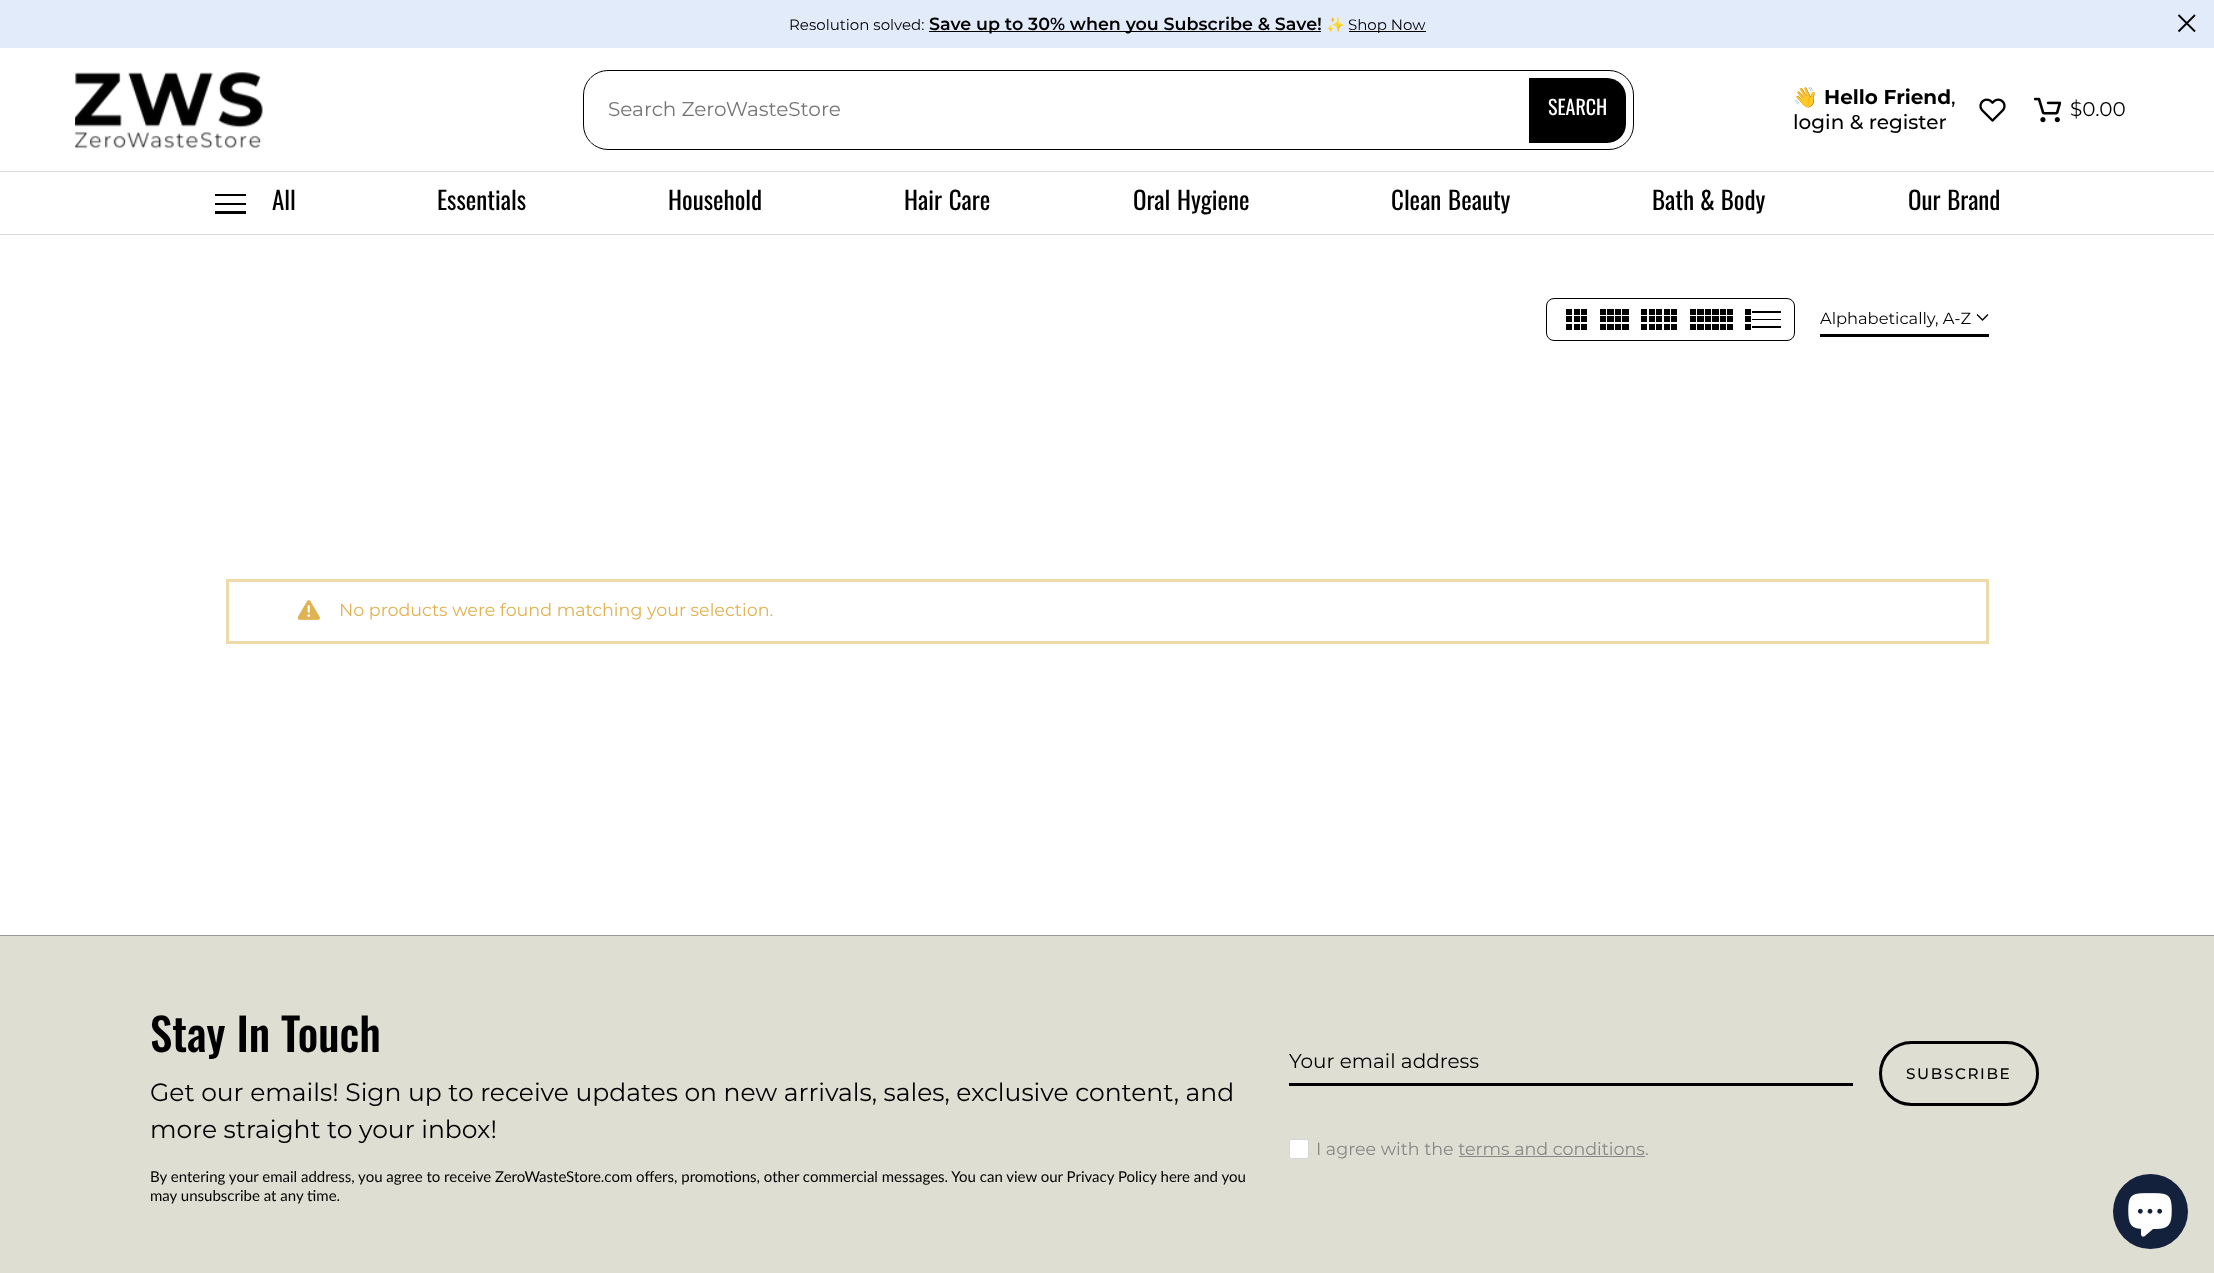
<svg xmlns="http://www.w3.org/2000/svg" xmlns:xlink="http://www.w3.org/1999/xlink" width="2214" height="1273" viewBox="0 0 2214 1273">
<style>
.cls-1{font:15px Montserrat;fill:#000000}
.cls-2{font:600 17.5px Montserrat;fill:#000000}
.cls-3{font:15px Noto Color Emoji;fill:#000000}
.cls-4{font:20px Montserrat;fill:#757575}
.cls-5{font:20px Oswald;fill:#ffffff}
.cls-6{font:bold 20px Noto Color Emoji;fill:#000000}
.cls-7{font:bold 20px Montserrat;fill:#000000}
.cls-8{font:500 20px Montserrat;fill:#000000}
.cls-9{font:20px Montserrat;fill:#000000}
.cls-10{font:25px Oswald;fill:#000000}
.cls-11{font:16.25px Montserrat;fill:#000000}
.cls-12{font:17.5px Montserrat;fill:#e0b252}
.cls-13{font:500 45px Oswald;fill:#000000}
.cls-14{font:25px Montserrat;fill:#000000}
.cls-15{font:15px Lato;fill:#000000}
.cls-16{font:500 15.25px Montserrat;letter-spacing:1.6px;fill:#000000}
.cls-17{font:17.5px Montserrat;fill:#878787}
</style>
<defs>
<clipPath id="clip1"><rect x="584" y="71" width="1049" height="78" rx="24"/></clipPath>
</defs>
<rect width="100%" height="100%" fill="#ffffff"/>
<rect fill="#e2ebfa" x="0" y="0" width="2214" height="48"/>
<rect fill="#000000" x="929" y="31" width="392" height="1"/>
<rect fill="#000000" x="1349" y="31" width="77" height="1"/>
<path fill="none" stroke="#000000" stroke-width="1.8" d="M2195 15L2178.5 31.5M2195 31.5L2178.5 15"/>
<image xlink:href="image0.png" x="75" y="72" width="188" height="77"/>
<rect fill="none" stroke="#000000" x="583.5" y="70.5" width="1050" height="79" rx="24.5"/>
<g clip-path="url(#clip1)">
<rect fill="#ffffff" x="590" y="78" width="939" height="65"/>
</g>
<path fill="#000000" d="M1529 78H1607C1617.5 78 1626 86.5 1626 97V124C1626 134.5 1617.5 143 1607 143H1529Z"/>
<image xlink:href="image1.png" x="1979" y="98" width="27" height="24"/>
<image xlink:href="image2.png" x="2034" y="97" width="27" height="26"/>
<rect fill="#d9d9d9" x="0" y="171" width="2214" height="1"/>
<rect fill="#000000" x="215" y="194" width="31" height="2"/>
<rect fill="#000000" x="215" y="203" width="31" height="2"/>
<rect fill="#000000" x="215" y="211" width="31" height="3"/>
<rect fill="#d9d9d9" x="0" y="234" width="2214" height="1"/>
<rect fill="none" stroke="#000000" x="1546.5" y="298.5" width="248" height="42" rx="7.5"/>
<image xlink:href="image3.png" x="1566" y="309" width="21" height="21"/>
<image xlink:href="image4.png" x="1600" y="309" width="29" height="21"/>
<image xlink:href="image5.png" x="1641" y="309" width="36" height="21"/>
<image xlink:href="image6.png" x="1690" y="309" width="43" height="21"/>
<rect fill="#000000" x="1745" y="309" width="6" height="6"/>
<rect fill="#000000" x="1745" y="316" width="6" height="6"/>
<rect fill="#000000" x="1745" y="324" width="6" height="6"/>
<rect fill="#000000" x="1752" y="311" width="29" height="2"/>
<rect fill="#000000" x="1752" y="319" width="29" height="1"/>
<rect fill="#000000" x="1752" y="326" width="29" height="2"/>
<rect fill="#000000" x="1820" y="334" width="169" height="3"/>
<path fill="none" stroke="#000000" stroke-width="1.3" stroke-linecap="square" d="M1987.5 315L1982.5 320L1977.5 315"/>
<rect fill="none" stroke="#f0d9a9" stroke-width="3" x="227.5" y="580.5" width="1760" height="62"/>
<image xlink:href="image7.png" x="298" y="600" width="22" height="20"/>
<rect fill="#deded2" x="0" y="936" width="2214" height="337"/>
<rect fill="#969696" x="0" y="935" width="2214" height="1"/>
<rect fill="#000000" x="1289" y="1083" width="564" height="3"/>
<rect fill="none" stroke="#000000" stroke-width="3" x="1880.5" y="1042.5" width="157" height="62" rx="31"/>
<rect fill="#ffffff" stroke="#d4d6d8" x="1289.5" y="1139.5" width="19" height="19" rx="2"/>
<rect fill="#878787" x="1459" y="1156" width="186" height="1"/>
<circle fill="#14213d" cx="2150.5" cy="1211.5" r="37.5"/>
<image xlink:href="image8.png" x="2128" y="1193" width="44" height="44"/>
<text class="cls-1" x="789" y="30">Resolution solved:</text>
<text class="cls-2" x="929" y="30">Save up to 30% when you Subscribe &amp; Save!</text>
<text class="cls-3" x="1326" y="30">✨</text>
<text class="cls-1" x="1348" y="30">Shop Now</text>
<text class="cls-4" x="608" y="116">Search ZeroWasteStore</text>
<text class="cls-5" x="1548" y="115">SEARCH</text>
<text class="cls-6" x="1793" y="104">👋</text>
<text class="cls-7" x="1824" y="104">Hello Friend</text>
<text class="cls-8" x="1951" y="104">,</text>
<text class="cls-8" x="1793" y="129">login &amp; register</text>
<text class="cls-9" x="2070" y="116">$0.00</text>
<text class="cls-10" x="272" y="210">All</text>
<text class="cls-10" x="437" y="210">Essentials</text>
<text class="cls-10" x="668" y="210">Household</text>
<text class="cls-10" x="904" y="210" word-spacing="1">Hair Care</text>
<text class="cls-10" x="1133" y="210" word-spacing="1">Oral Hygiene</text>
<text class="cls-10" x="1391" y="210" word-spacing="1">Clean Beauty</text>
<text class="cls-10" x="1652" y="210">Bath &amp; Body</text>
<text class="cls-10" x="1908" y="210" word-spacing="1">Our Brand</text>
<text class="cls-11" x="1820" y="324">Alphabetically, A-Z</text>
<text class="cls-12" x="339" y="616">No products were found matching your selection.</text>
<text class="cls-13" x="150" y="1052">Stay In Touch</text>
<text class="cls-14"><tspan x="150" y="1101">Get our emails! Sign up to receive updates on new arrivals, sales, exclusive content, and</tspan><tspan x="150" y="1138">more straight to your inbox!</tspan></text>
<text class="cls-15"><tspan x="150" y="1182">By entering your email address, you agree to receive ZeroWasteStore.com offers, promotions, other commercial messages. You can view our Privacy Policy here and you</tspan><tspan x="150" y="1201">may unsubscribe at any time.</tspan></text>
<text class="cls-9" x="1289" y="1068">Your email address</text>
<text class="cls-16" x="1906" y="1079">SUBSCRIBE</text>
<text class="cls-17" x="1316" y="1155">I agree with the terms and conditions</text>
<text class="cls-17" x="1645" y="1155">.</text>
</svg>
